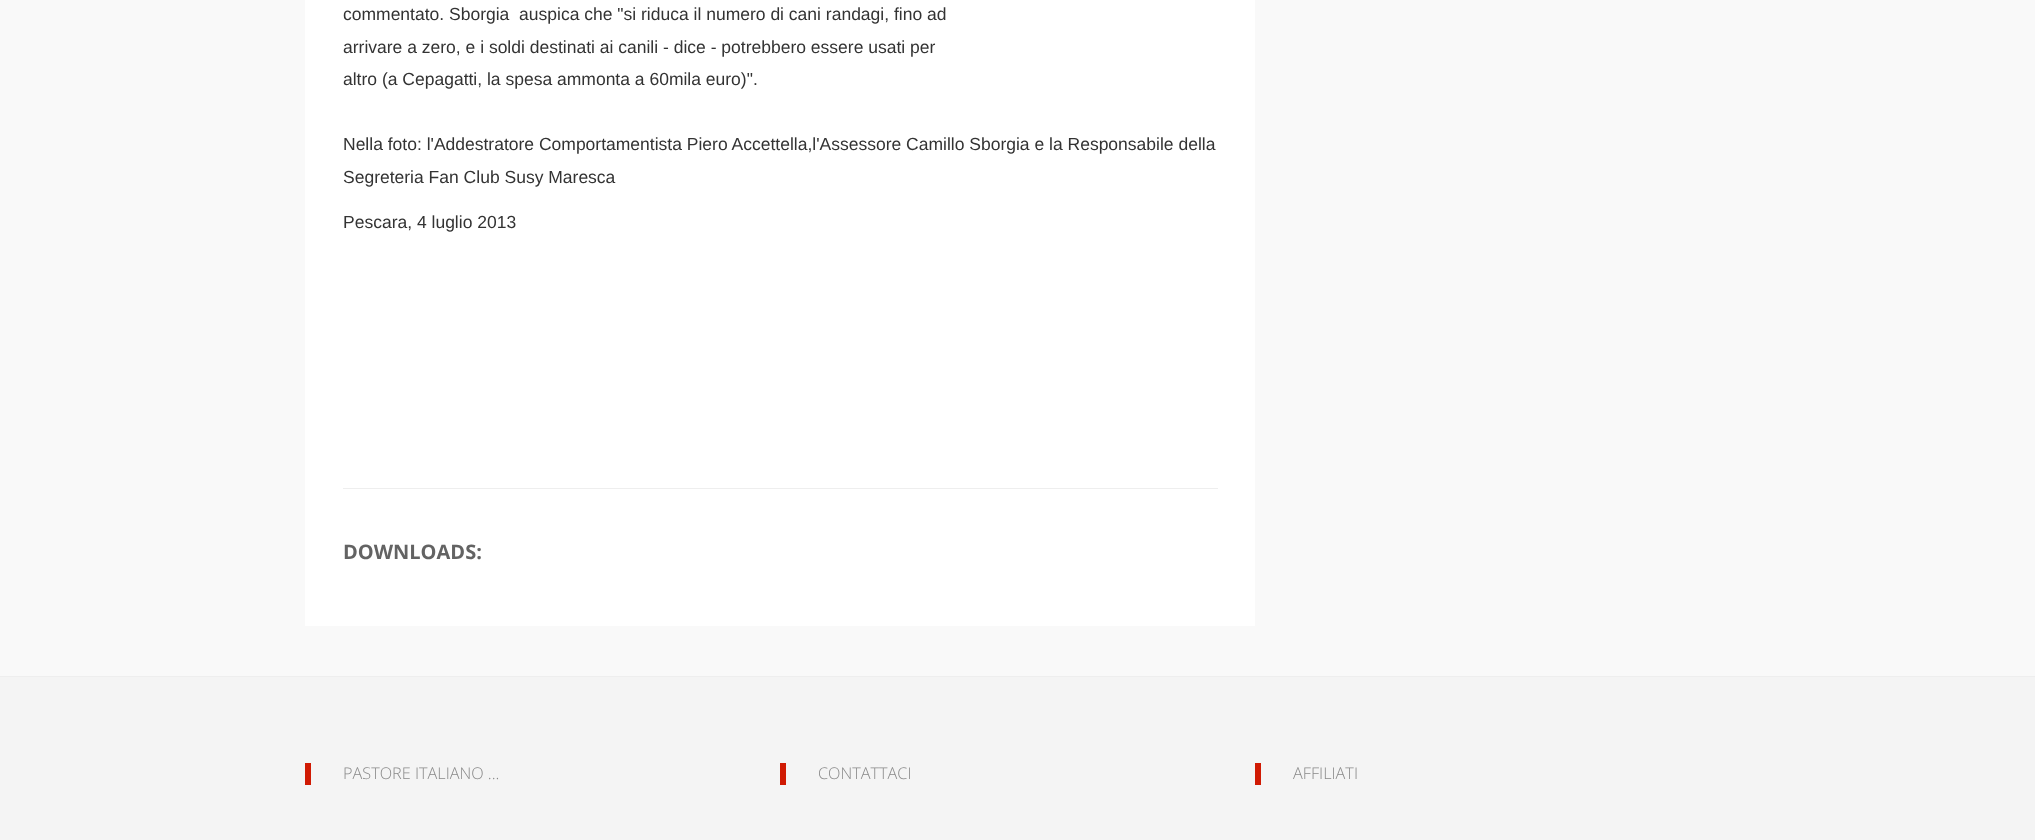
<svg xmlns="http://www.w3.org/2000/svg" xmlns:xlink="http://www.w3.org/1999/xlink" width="2035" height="840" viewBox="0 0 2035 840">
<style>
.cls-1{font:17.5px Liberation Sans;fill:#333333}
.cls-2{font:bold 20px Open Sans;fill:#636363}
.cls-3{font:300 16.25px Open Sans;fill:#898989}
</style>
<rect width="100%" height="100%" fill="#f9f9f9"/>
<rect fill="#ffffff" x="305" y="0" width="950" height="626"/>
<rect fill="#eeeeee" x="343" y="488" width="875" height="1"/>
<rect fill="#f4f4f4" x="0" y="677" width="2035" height="163"/>
<rect fill="#eeeeee" x="0" y="676" width="2035" height="1"/>
<rect fill="#d01a03" x="305" y="763" width="6" height="22"/>
<rect fill="#d01a03" x="780" y="763" width="6" height="22"/>
<rect fill="#d01a03" x="1255" y="763" width="6" height="22"/>
<text class="cls-1" xml:space="preserve"><tspan x="343" y="20">commentato. Sborgia  auspica che "si riduca il numero di cani randagi, fino ad</tspan><tspan x="343" y="53">arrivare a zero, e i soldi destinati ai canili - dice - potrebbero essere usati per</tspan><tspan x="343" y="85">altro (a Cepagatti, la spesa ammonta a 60mila euro)".</tspan></text>
<text class="cls-1"><tspan x="343" y="150">Nella foto: l'Addestratore Comportamentista Piero Accettella,l'Assessore Camillo Sborgia e la Responsabile della</tspan><tspan x="343" y="183">Segreteria Fan Club Susy Maresca</tspan></text>
<text class="cls-1" x="343" y="228">Pescara, 4 luglio 2013</text>
<text class="cls-2" x="343" y="559">DOWNLOADS:</text>
<text class="cls-3" x="343" y="779">PASTORE ITALIANO ...</text>
<text class="cls-3" x="818" y="779">CONTATTACI</text>
<text class="cls-3" x="1293" y="779">AFFILIATI</text>
</svg>
